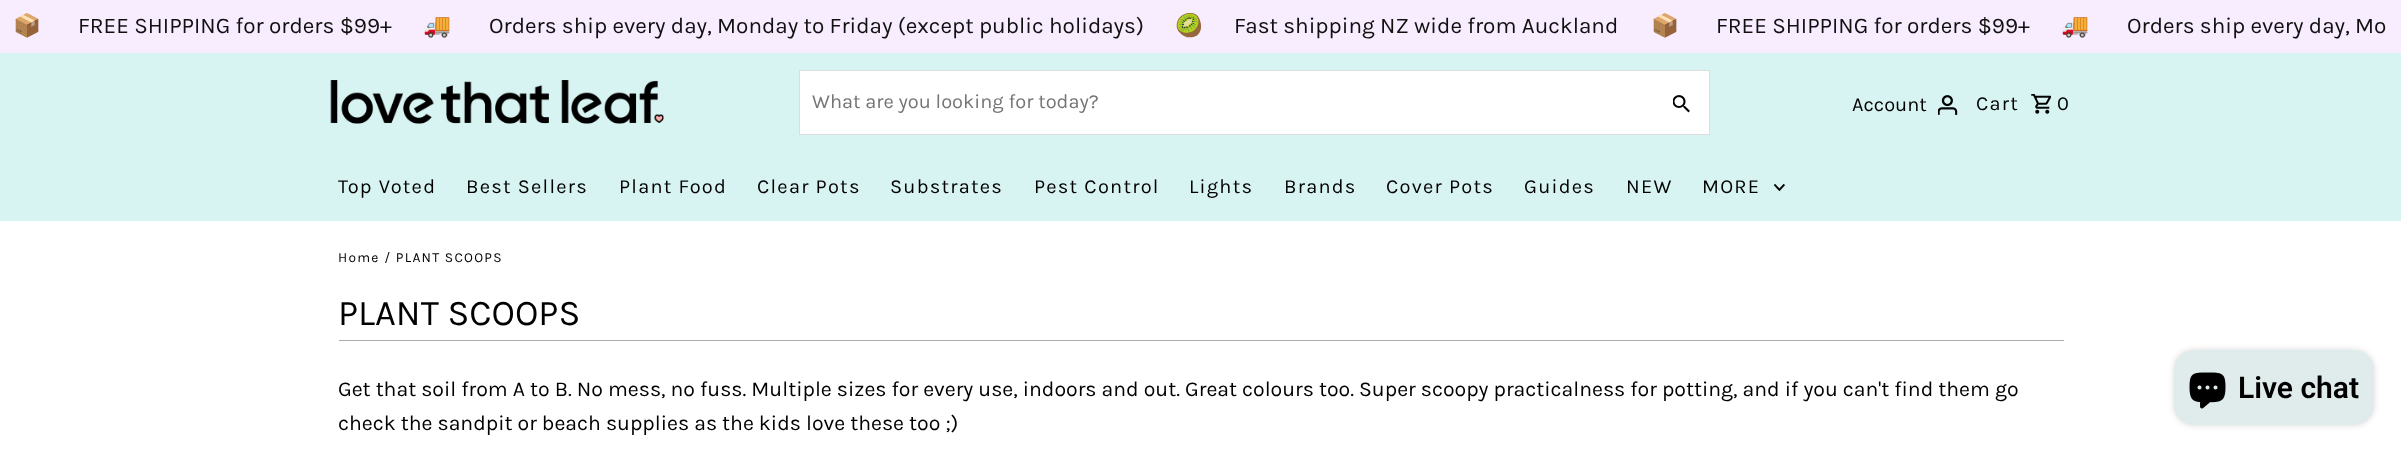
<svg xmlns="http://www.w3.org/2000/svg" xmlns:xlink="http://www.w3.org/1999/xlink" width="2401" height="451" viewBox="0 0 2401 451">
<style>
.cls-1{font:22.5px Noto Color Emoji;fill:#101010}
.cls-2{font:22.5px Karla;fill:#101010}
.cls-3{font:20px Karla;fill:#757575}
.cls-4{font:20px Karla;fill:#000000}
.cls-5{font:20px Karla;letter-spacing:1.25px;fill:#000000}
.cls-6{font:13.75px Karla;letter-spacing:1.25px;fill:#000000}
.cls-7{font:36.25px Karla;fill:#000000}
.cls-8{font:21.25px Karla;fill:#000000}
.cls-9{font:600 30px Roboto;fill:#000000}
</style>
<defs>
<clipPath id="clip1"><rect x="13" y="13" width="2376" height="27"/></clipPath>
</defs>
<rect width="100%" height="100%" fill="#ffffff"/>
<rect fill="#f8edff" x="0" y="0" width="2401" height="53"/>
<rect fill="#d8f4f2" x="0" y="53" width="2401" height="168"/>
<image xlink:href="image0.png" x="330" y="80" width="334" height="44"/>
<rect fill="none" stroke="#dddddd" x="799.5" y="70.5" width="910" height="64"/>
<rect fill="#ffffff" x="800" y="71" width="909" height="63"/>
<image xlink:href="image1.png" x="1673" y="95" width="17" height="18"/>
<image xlink:href="image2.png" x="1938" y="95" width="20" height="20"/>
<image xlink:href="image3.png" x="2031" y="94" width="20" height="20"/>
<image xlink:href="image4.png" x="1774" y="184" width="11" height="7"/>
<rect fill="#acacac" x="339" y="340" width="1725" height="1"/>
<rect fill="#000000" fill-opacity="0.15" filter="blur(3px)" x="2174" y="350" width="200" height="75" rx="20"/>
<rect fill="#e0eceb" x="2174" y="350" width="200" height="75" rx="20"/>
<image xlink:href="image5.png" x="2189" y="372" width="37" height="37"/>
<g clip-path="url(#clip1)">
<text class="cls-1" x="13" y="33">📦</text>
</g>
<text class="cls-2" x="78" y="33">FREE SHIPPING for orders $99+</text>
<g clip-path="url(#clip1)">
<text class="cls-1" x="423" y="33">🚚</text>
</g>
<text class="cls-2" x="489" y="33">Orders ship every day, Monday to Friday (except public holidays)</text>
<g clip-path="url(#clip1)">
<text class="cls-1" x="1175" y="33">🥝</text>
</g>
<text class="cls-2" x="1234" y="33">Fast shipping NZ wide from Auckland</text>
<g clip-path="url(#clip1)">
<text class="cls-1" x="1651" y="33">📦</text>
</g>
<text class="cls-2" x="1716" y="33">FREE SHIPPING for orders $99+</text>
<g clip-path="url(#clip1)">
<text class="cls-1" x="2061" y="33">🚚</text>
</g>
<text class="cls-2" x="2127" y="33">Orders ship every day, Mo</text>
<text class="cls-3" x="812" y="108">What are you looking for today?</text>
<text class="cls-4" x="1852" y="111">Account</text>
<text class="cls-5" x="1976" y="110">Cart</text>
<text class="cls-5" x="2057" y="110">0</text>
<text class="cls-5" x="338" y="193">Top Voted</text>
<text class="cls-5" x="466" y="193">Best Sellers</text>
<text class="cls-5" x="619" y="193">Plant Food</text>
<text class="cls-5" x="757" y="193">Clear Pots</text>
<text class="cls-5" x="890" y="193">Substrates</text>
<text class="cls-5" x="1034" y="193">Pest Control</text>
<text class="cls-5" x="1189" y="193">Lights</text>
<text class="cls-5" x="1284" y="193">Brands</text>
<text class="cls-5" x="1386" y="193">Cover Pots</text>
<text class="cls-5" x="1524" y="193">Guides</text>
<text class="cls-5" x="1626" y="193">NEW</text>
<text class="cls-5" x="1702" y="193">MORE</text>
<text class="cls-6" x="338" y="262">Home / PLANT SCOOPS</text>
<text class="cls-7" x="338" y="325">PLANT SCOOPS</text>
<text class="cls-8"><tspan x="338" y="396">Get that soil from A to B. No mess, no fuss. Multiple sizes for every use, indoors and out. Great colours too. Super scoopy practicalness for potting, and if you can't find them go</tspan><tspan x="338" y="430">check the sandpit or beach supplies as the kids love these too ;)</tspan></text>
<text class="cls-9" x="2238" y="398">Live chat</text>
</svg>
